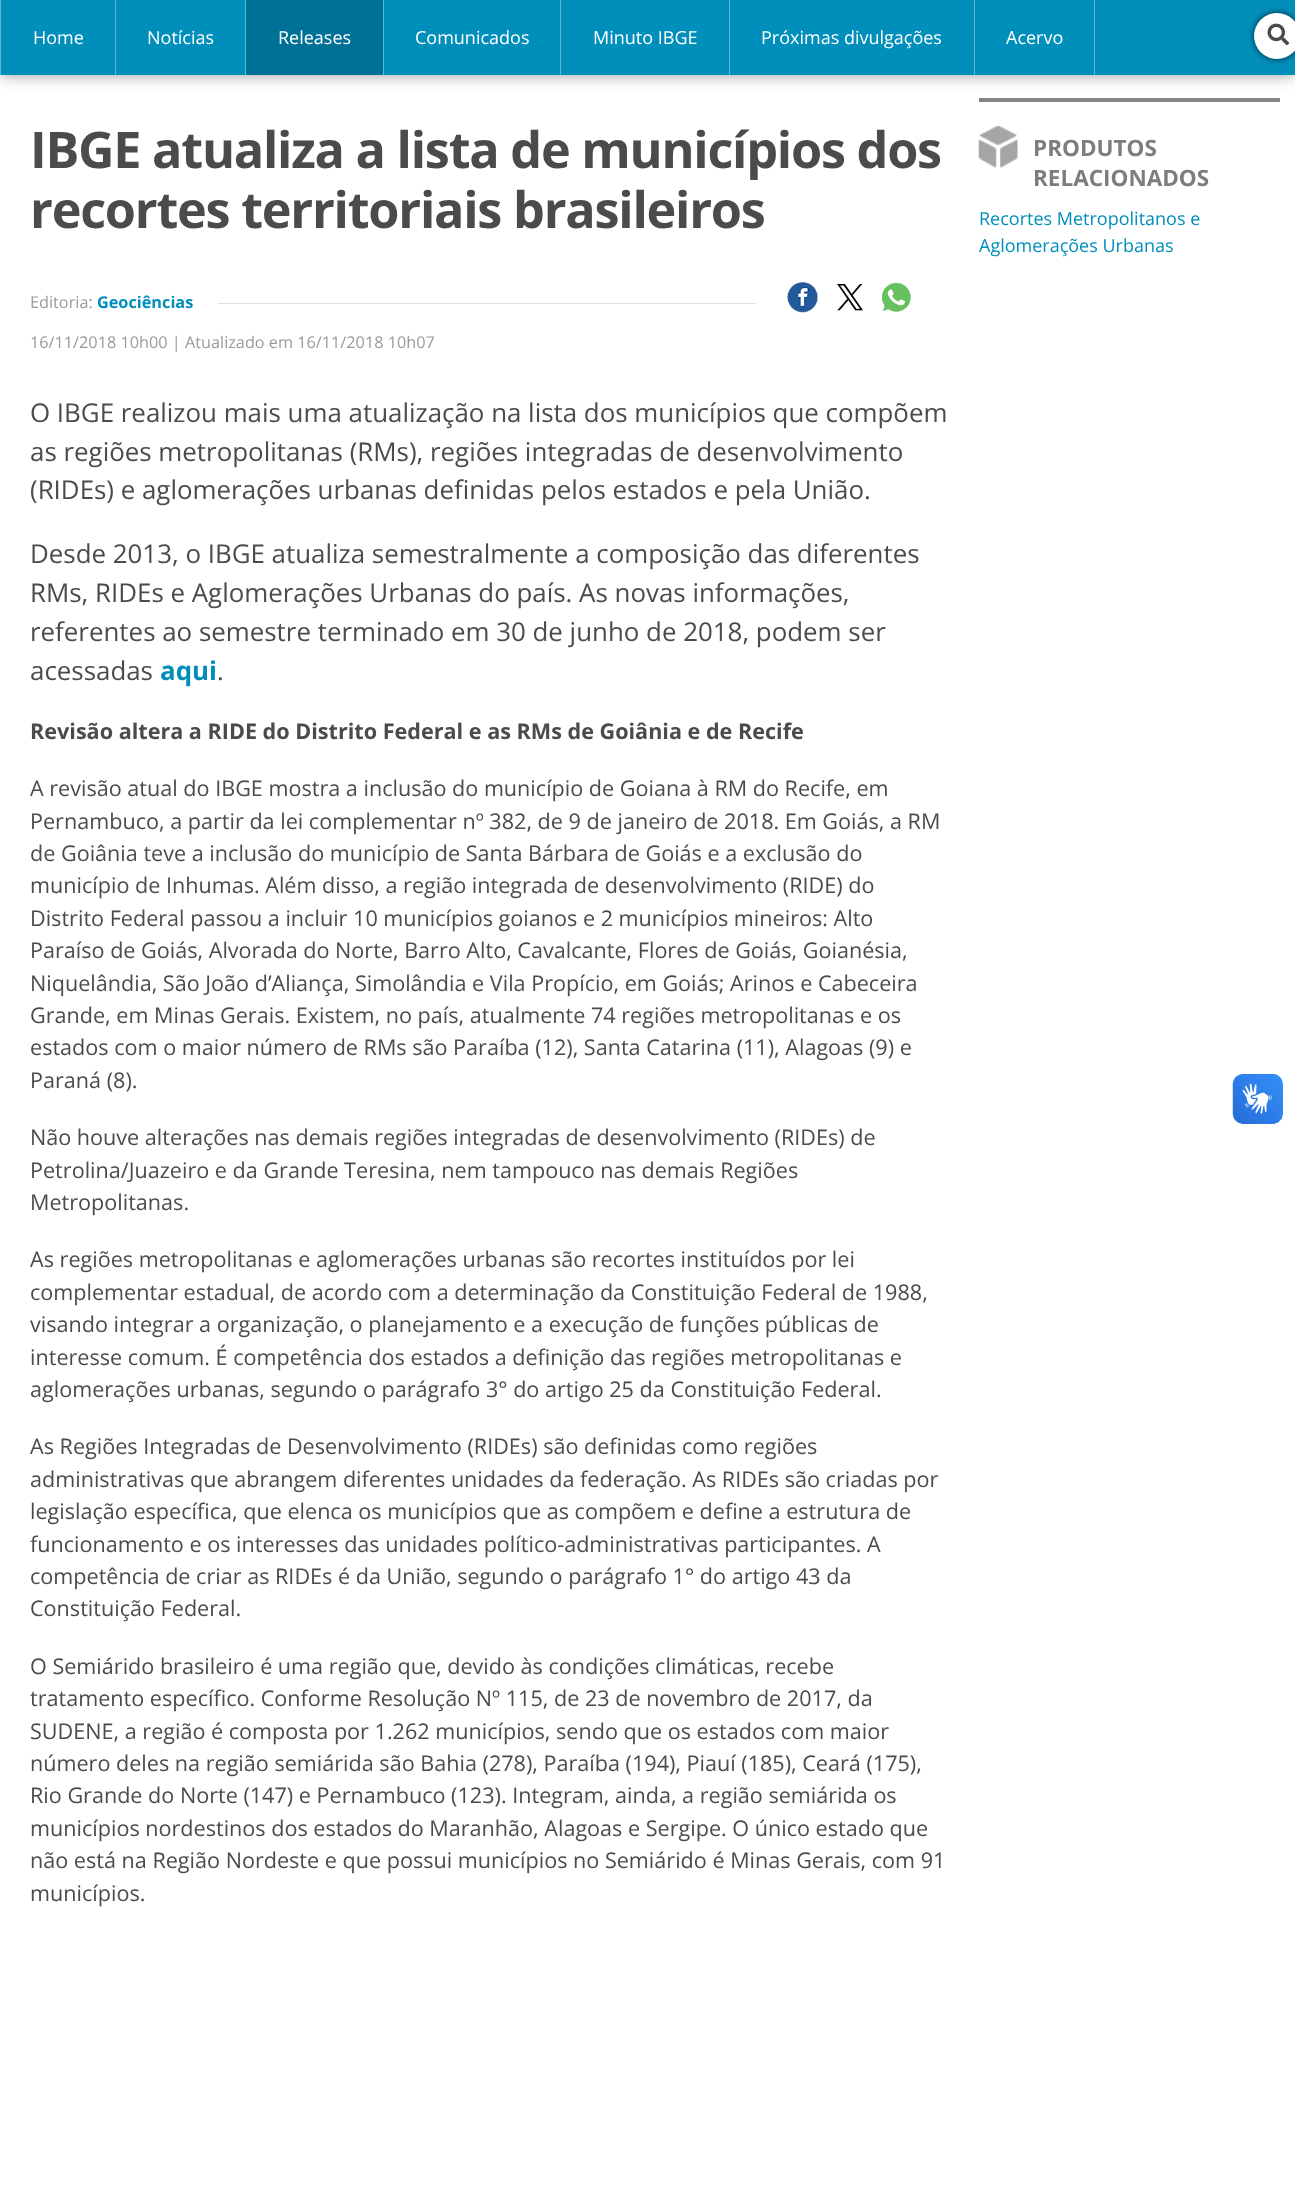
<svg xmlns="http://www.w3.org/2000/svg" xmlns:xlink="http://www.w3.org/1999/xlink" width="1295" height="2196" viewBox="0 0 1295 2196">
<style>
.cls-1{font:18px Open Sans;fill:#ffffff}
.cls-2{font:bold 50.4px Open Sans;letter-spacing:-1.25px;fill:#4b4b4c}
.cls-3{font:16.25px Open Sans;fill:#9a9a9a}
.cls-4{font:bold 16.25px Open Sans;fill:#008ebb}
.cls-5{font:25.9px Open Sans;fill:#4b4b4c}
.cls-6{font:bold 25.9px Open Sans;fill:#008ebb}
.cls-7{font:bold 21.6px Open Sans;fill:#4b4b4c}
.cls-8{font:21.6px Open Sans;fill:#4b4b4c}
.cls-9{font:bold 22.5px Open Sans;fill:#7e7c80}
.cls-10{font:18px Open Sans;fill:#008ebb}
</style>
<rect width="100%" height="100%" fill="#ffffff"/>
<rect fill="#858585" x="979" y="98" width="301" height="4"/>
<rect fill="#000000" fill-opacity="0.4" filter="blur(7.5px)" x="0" y="0" width="1295" height="75"/>
<rect fill="#008ebb" x="1" y="0" width="1294" height="75"/>
<rect fill="#5ab6d3" x="0" y="0" width="1" height="75"/>
<rect fill="#5ab6d3" x="115" y="0" width="1" height="75"/>
<rect fill="#007196" x="246" y="0" width="137" height="75"/>
<rect fill="#5ab6d3" x="245" y="0" width="1" height="75"/>
<rect fill="#5ab6d3" x="383" y="0" width="1" height="75"/>
<rect fill="#5ab6d3" x="560" y="0" width="1" height="75"/>
<rect fill="#5ab6d3" x="729" y="0" width="1" height="75"/>
<rect fill="#5ab6d3" x="1094" y="0" width="1" height="75"/>
<rect fill="#5ab6d3" x="974" y="0" width="1" height="75"/>
<rect fill="#000000" fill-opacity="0.75" filter="blur(3px)" x="1254" y="13" width="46" height="46" rx="23"/>
<circle fill="#ffffff" cx="1277" cy="36" r="23"/>
<image xlink:href="image0.png" x="1267" y="23" width="23" height="23"/>
<rect fill="#e0e0e0" x="218" y="303" width="538" height="1"/>
<image xlink:href="image1.png" x="787" y="282" width="31" height="31"/>
<image xlink:href="image2.png" x="837" y="284" width="26" height="27"/>
<image xlink:href="image3.png" x="882" y="283" width="29" height="29"/>
<image xlink:href="image4.png" x="978" y="126" width="40" height="42"/>
<image xlink:href="image5.png" x="1232" y="1073" width="51" height="51"/>
<image xlink:href="image6.png" x="1233" y="1074" width="50" height="50"/>
<text class="cls-1" x="33" y="44">Home</text>
<text class="cls-1" x="147" y="44">Notícias</text>
<text class="cls-1" x="278" y="44">Releases</text>
<text class="cls-1" x="415" y="44">Comunicados</text>
<text class="cls-1" x="593" y="44">Minuto IBGE</text>
<text class="cls-1" x="761" y="44">Próximas divulgações</text>
<text class="cls-1" x="1006" y="44">Acervo</text>
<text class="cls-2"><tspan x="30" y="168">IBGE atualiza a lista de municípios dos</tspan><tspan x="30" y="228">recortes territoriais brasileiros</tspan></text>
<text class="cls-3" x="30" y="308">Editoria:</text>
<text class="cls-4" x="97" y="308">Geociências</text>
<text class="cls-3" x="30" y="348">16/11/2018 10h00 | Atualizado em 16/11/2018 10h07</text>
<text class="cls-5"><tspan x="30" y="422">O IBGE realizou mais uma atualização na lista dos municípios que compõem</tspan><tspan x="30" y="461">as regiões metropolitanas (RMs), regiões integradas de desenvolvimento</tspan><tspan x="30" y="499">(RIDEs) e aglomerações urbanas definidas pelos estados e pela União.</tspan></text>
<text class="cls-5"><tspan x="30" y="563">Desde 2013, o IBGE atualiza semestralmente a composição das diferentes</tspan><tspan x="30" y="602">RMs, RIDEs e Aglomerações Urbanas do país. As novas informações,</tspan><tspan x="30" y="641">referentes ao semestre terminado em 30 de junho de 2018, podem ser</tspan><tspan x="30" y="680">acessadas</tspan></text>
<text class="cls-6" x="160" y="680">aqui</text>
<text class="cls-5" x="217" y="680">.</text>
<text class="cls-7" x="30" y="739">Revisão altera a RIDE do Distrito Federal e as RMs de Goiânia e de Recife</text>
<text class="cls-8"><tspan x="30" y="796">A revisão atual do IBGE mostra a inclusão do município de Goiana à RM do Recife, em</tspan><tspan x="30" y="829">Pernambuco, a partir da lei complementar nº 382, de 9 de janeiro de 2018. Em Goiás, a RM</tspan><tspan x="30" y="861">de Goiânia teve a inclusão do município de Santa Bárbara de Goiás e a exclusão do</tspan><tspan x="30" y="893">município de Inhumas. Além disso, a região integrada de desenvolvimento (RIDE) do</tspan><tspan x="30" y="926">Distrito Federal passou a incluir 10 municípios goianos e 2 municípios mineiros: Alto</tspan><tspan x="30" y="958">Paraíso de Goiás, Alvorada do Norte, Barro Alto, Cavalcante, Flores de Goiás, Goianésia,</tspan><tspan x="30" y="991">Niquelândia, São João d’Aliança, Simolândia e Vila Propício, em Goiás; Arinos e Cabeceira</tspan><tspan x="30" y="1023">Grande, em Minas Gerais. Existem, no país, atualmente 74 regiões metropolitanas e os</tspan><tspan x="30" y="1055">estados com o maior número de RMs são Paraíba (12), Santa Catarina (11), Alagoas (9) e</tspan><tspan x="30" y="1088">Paraná (8).</tspan></text>
<text class="cls-8"><tspan x="30" y="1145">Não houve alterações nas demais regiões integradas de desenvolvimento (RIDEs) de</tspan><tspan x="30" y="1178">Petrolina/Juazeiro e da Grande Teresina, nem tampouco nas demais Regiões</tspan><tspan x="30" y="1210">Metropolitanas.</tspan></text>
<text class="cls-8"><tspan x="30" y="1267">As regiões metropolitanas e aglomerações urbanas são recortes instituídos por lei</tspan><tspan x="30" y="1300">complementar estadual, de acordo com a determinação da Constituição Federal de 1988,</tspan><tspan x="30" y="1332">visando integrar a organização, o planejamento e a execução de funções públicas de</tspan><tspan x="30" y="1365">interesse comum. É competência dos estados a definição das regiões metropolitanas e</tspan><tspan x="30" y="1397">aglomerações urbanas, segundo o parágrafo 3° do artigo 25 da Constituição Federal.</tspan></text>
<text class="cls-8"><tspan x="30" y="1454">As Regiões Integradas de Desenvolvimento (RIDEs) são definidas como regiões</tspan><tspan x="30" y="1487">administrativas que abrangem diferentes unidades da federação. As RIDEs são criadas por</tspan><tspan x="30" y="1519">legislação específica, que elenca os municípios que as compõem e define a estrutura de</tspan><tspan x="30" y="1552">funcionamento e os interesses das unidades político-administrativas participantes. A</tspan><tspan x="30" y="1584">competência de criar as RIDEs é da União, segundo o parágrafo 1° do artigo 43 da</tspan><tspan x="30" y="1616">Constituição Federal.</tspan></text>
<text class="cls-8"><tspan x="30" y="1674">O Semiárido brasileiro é uma região que, devido às condições climáticas, recebe</tspan><tspan x="30" y="1706">tratamento específico. Conforme Resolução Nº 115, de 23 de novembro de 2017, da</tspan><tspan x="30" y="1739">SUDENE, a região é composta por 1.262 municípios, sendo que os estados com maior</tspan><tspan x="30" y="1771">número deles na região semiárida são Bahia (278), Paraíba (194), Piauí (185), Ceará (175),</tspan><tspan x="30" y="1803">Rio Grande do Norte (147) e Pernambuco (123). Integram, ainda, a região semiárida os</tspan><tspan x="30" y="1836">municípios nordestinos dos estados do Maranhão, Alagoas e Sergipe. O único estado que</tspan><tspan x="30" y="1868">não está na Região Nordeste e que possui municípios no Semiárido é Minas Gerais, com 91</tspan><tspan x="30" y="1901">municípios.</tspan></text>
<text class="cls-9"><tspan x="1033" y="156">PRODUTOS</tspan><tspan x="1033" y="186">RELACIONADOS</tspan></text>
<text class="cls-10"><tspan x="979" y="225">Recortes Metropolitanos e</tspan><tspan x="979" y="252">Aglomerações Urbanas</tspan></text>
</svg>
